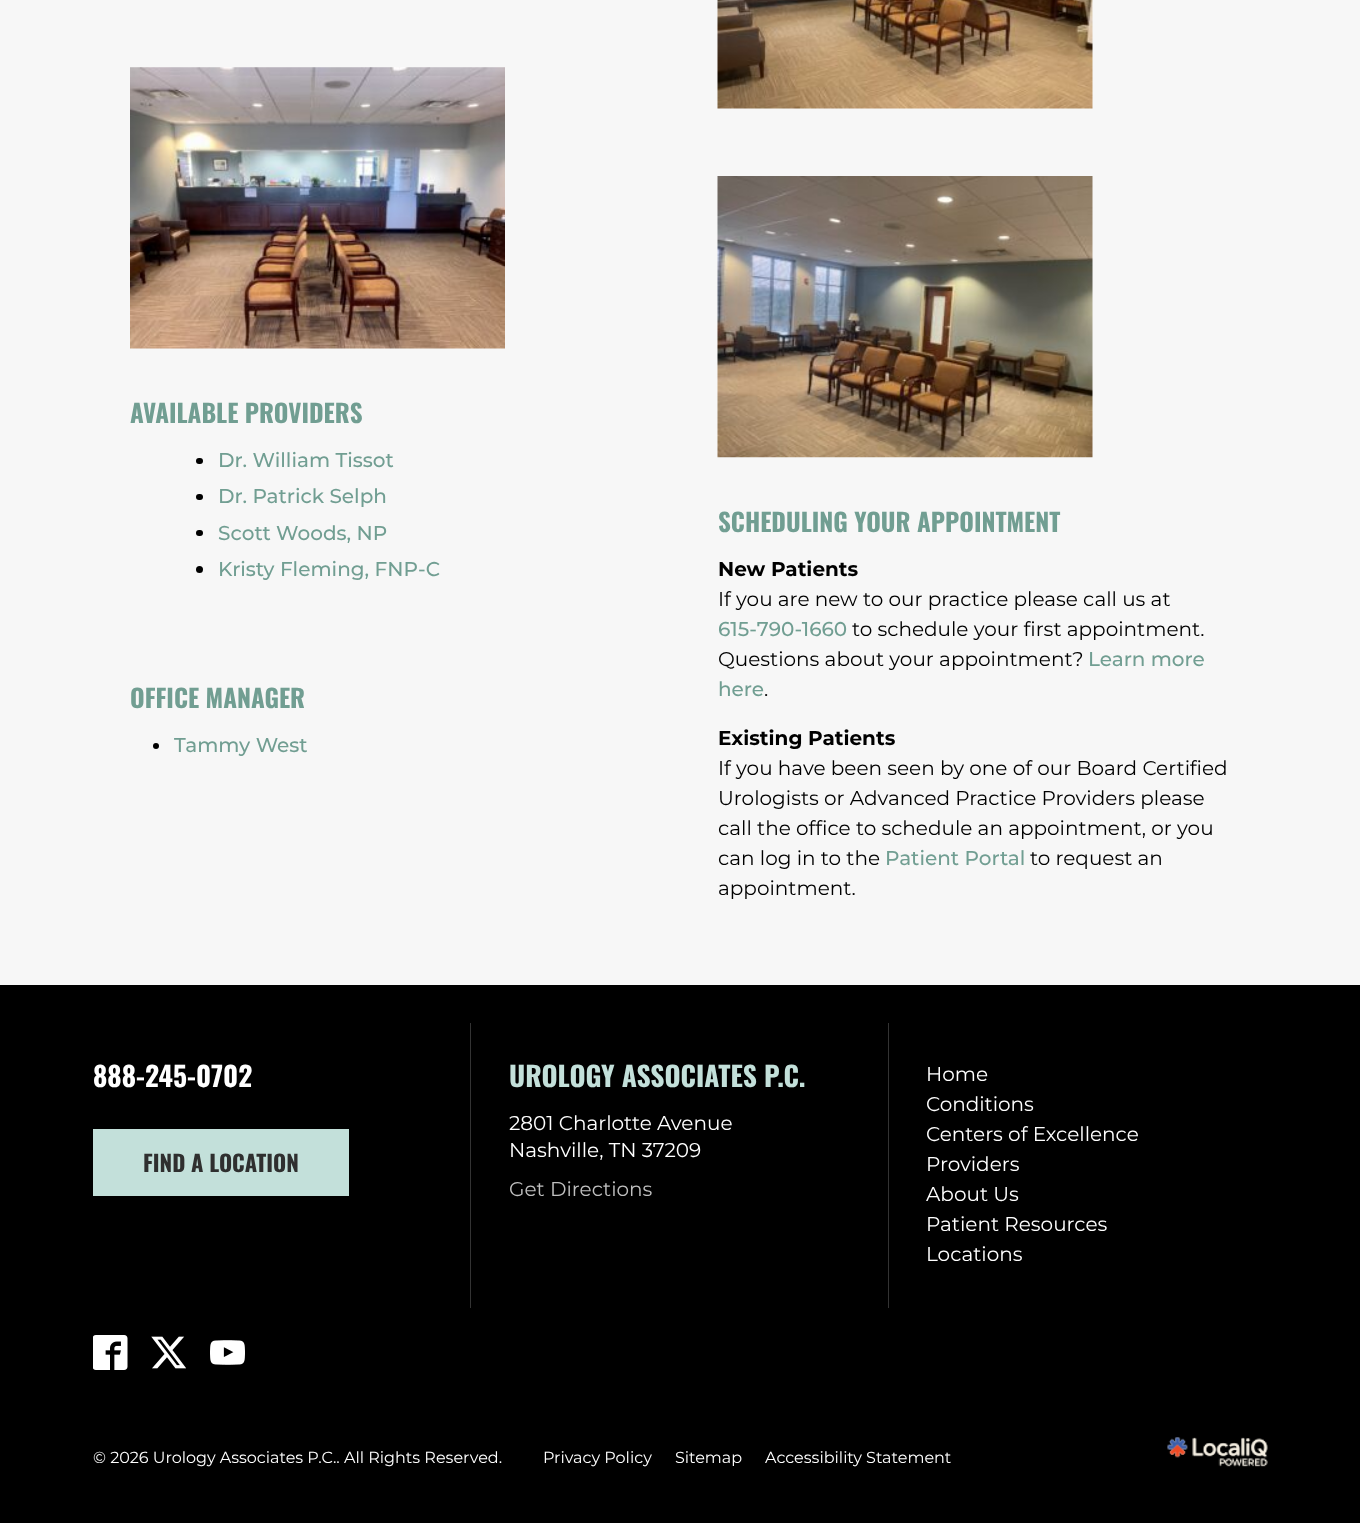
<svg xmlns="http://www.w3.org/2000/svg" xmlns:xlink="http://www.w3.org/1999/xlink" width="1360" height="1523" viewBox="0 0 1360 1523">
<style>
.cls-1{font:bold 25px Oswald;fill:#719e92}
.cls-2{font:500 20px Montserrat;fill:#719e92}
.cls-3{font:bold 20px Montserrat;fill:#000000}
.cls-4{font:20px Montserrat;fill:#000000}
.cls-5{font:bold 27.5px Oswald;fill:#ffffff}
.cls-6{font:bold 22.5px Oswald;fill:#2f2f2f}
.cls-7{font:bold 27.5px Oswald;fill:#c3e0da}
.cls-8{font:20px Montserrat;fill:#ffffff}
.cls-9{font:20px Montserrat;fill:#bfbfbf}
.cls-10{font:16px Montserrat;fill:#ffffff}
</style>
<rect width="100%" height="100%" fill="#000000"/>
<rect fill="#f7f7f7" x="0" y="0" width="1360" height="985"/>
<image xlink:href="image0.png" x="130" y="67" width="375" height="282"/>
<rect fill="#000000" x="196" y="458" width="7" height="6" rx="3"/>
<rect fill="#000000" x="196" y="494" width="7" height="6" rx="3"/>
<rect fill="#000000" x="196" y="530" width="7" height="6" rx="3"/>
<circle fill="#000000" cx="199.5" cy="569.5" r="3.5"/>
<circle fill="#000000" cx="156" cy="746" r="3"/>
<image xlink:href="image1.png" x="717" y="0" width="376" height="109"/>
<image xlink:href="image2.png" x="717" y="176" width="376" height="282"/>
<rect fill="#333333" x="470" y="1023" width="1" height="285"/>
<rect fill="#c3e0da" x="93" y="1129" width="256" height="67"/>
<rect fill="#333333" x="888" y="1023" width="1" height="285"/>
<image xlink:href="image3.png" x="93" y="1335" width="35" height="35"/>
<image xlink:href="image4.png" x="151" y="1336" width="35" height="33"/>
<image xlink:href="image5.png" x="210" y="1340" width="35" height="25"/>
<image xlink:href="image6.png" x="1167" y="1437" width="101" height="30"/>
<text class="cls-1" x="130" y="423">AVAILABLE PROVIDERS</text>
<text class="cls-2"><tspan x="218" y="467">Dr. William Tissot</tspan><tspan x="218" y="503">Dr. Patrick Selph</tspan><tspan x="218" y="540">Scott Woods, NP</tspan><tspan x="218" y="576">Kristy Fleming, FNP-C</tspan></text>
<text class="cls-1" x="130" y="708">OFFICE MANAGER</text>
<text class="cls-2" x="174" y="752">Tammy West</text>
<text class="cls-1" x="718" y="532">SCHEDULING YOUR APPOINTMENT</text>
<text class="cls-3" x="718" y="576">New Patients</text>
<text class="cls-4" x="718" y="606">If you are new to our practice please call us at</text>
<text class="cls-2" x="718" y="636">615-790-1660</text>
<text class="cls-4" x="852" y="636">to schedule your first appointment.</text>
<text class="cls-4" x="718" y="666">Questions about your appointment?</text>
<text class="cls-2" x="1088" y="666">Learn more</text>
<text class="cls-2" x="718" y="696">here</text>
<text class="cls-4" x="764" y="696">.</text>
<text class="cls-3" x="718" y="745">Existing Patients</text>
<text class="cls-4"><tspan x="718" y="775">If you have been seen by one of our Board Certified</tspan><tspan x="718" y="805">Urologists or Advanced Practice Providers please</tspan><tspan x="718" y="835">call the office to schedule an appointment, or you</tspan><tspan x="718" y="865">can log in to the</tspan></text>
<text class="cls-2" x="885" y="865">Patient Portal</text>
<text class="cls-4" x="1030" y="865">to request an</text>
<text class="cls-4" x="718" y="895">appointment.</text>
<text class="cls-5" x="93" y="1087">888-245-0702</text>
<text class="cls-6" x="143" y="1172">FIND A LOCATION</text>
<text class="cls-7" x="509" y="1087">UROLOGY ASSOCIATES P.C.</text>
<text class="cls-8"><tspan x="509" y="1130">2801 Charlotte Avenue</tspan><tspan x="509" y="1157">Nashville, TN 37209</tspan></text>
<text class="cls-9" x="509" y="1196">Get Directions</text>
<text class="cls-8"><tspan x="926" y="1081">Home</tspan><tspan x="926" y="1111">Conditions</tspan><tspan x="926" y="1141">Centers of Excellence</tspan><tspan x="926" y="1171">Providers</tspan><tspan x="926" y="1201">About Us</tspan><tspan x="926" y="1231">Patient Resources</tspan><tspan x="926" y="1261">Locations</tspan></text>
<text class="cls-10" x="93" y="1463">© 2026 Urology Associates P.C.. All Rights Reserved.</text>
<text class="cls-10" x="543" y="1463">Privacy Policy</text>
<text class="cls-10" x="675" y="1463">Sitemap</text>
<text class="cls-10" x="765" y="1463">Accessibility Statement</text>
</svg>
